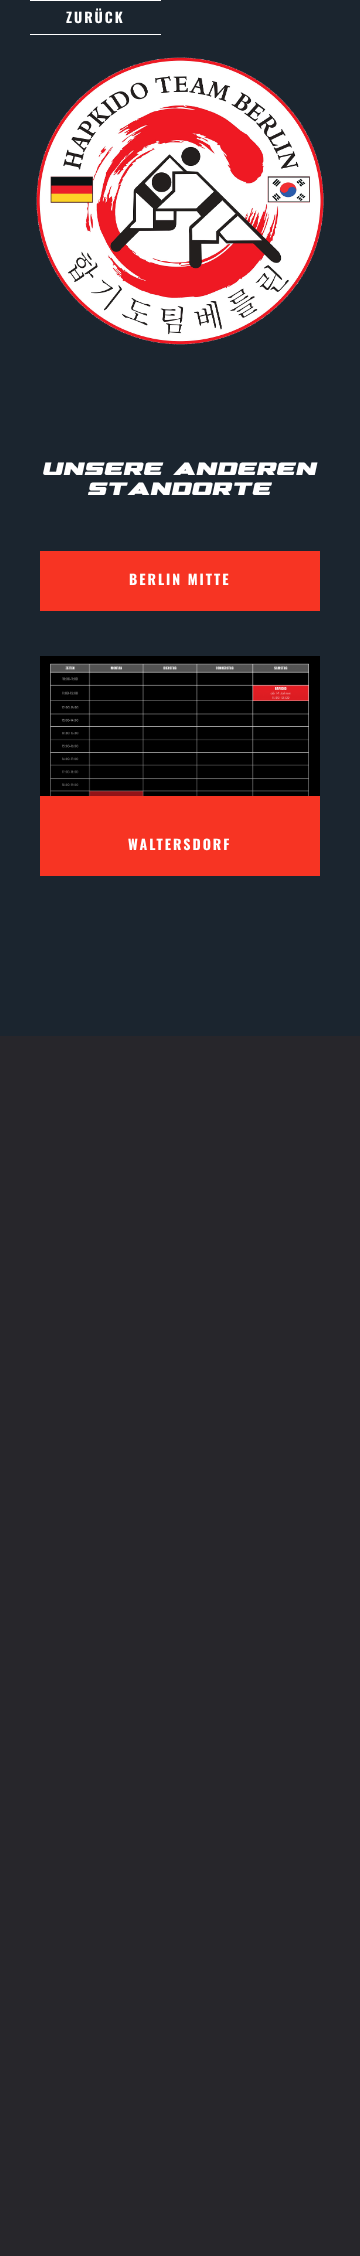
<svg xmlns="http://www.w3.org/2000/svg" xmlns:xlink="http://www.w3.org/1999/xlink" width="360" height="2256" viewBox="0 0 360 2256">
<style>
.cls-1{font:bold 14px Oswald;letter-spacing:2px;fill:#ffffff}
.cls-2{font:bold 20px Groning;letter-spacing:1px;fill:#ffffff}
</style>
<rect width="100%" height="100%" fill="#27262b"/>
<rect fill="#1b252f" x="0" y="0" width="360" height="1036"/>
<rect fill="#ffffff" x="30" y="0" width="131" height="1"/>
<rect fill="#ffffff" x="30" y="34" width="131" height="1"/>
<image xlink:href="image0.png" x="36" y="57" width="288" height="288"/>
<rect fill="#f73423" x="40" y="551" width="280" height="60"/>
<rect fill="#f73423" x="40" y="796" width="280" height="80"/>
<image xlink:href="image1.png" x="40" y="656" width="280" height="140"/>
<text class="cls-1" x="66" y="23">ZURÜCK</text>
<text class="cls-2" x="43" y="475">Unsere anderen</text>
<text class="cls-2" x="88" y="495">Standorte</text>
<text class="cls-1" x="129" y="585">BERLIN MITTE</text>
<text class="cls-1" x="128" y="850">WALTERSDORF</text>
</svg>
